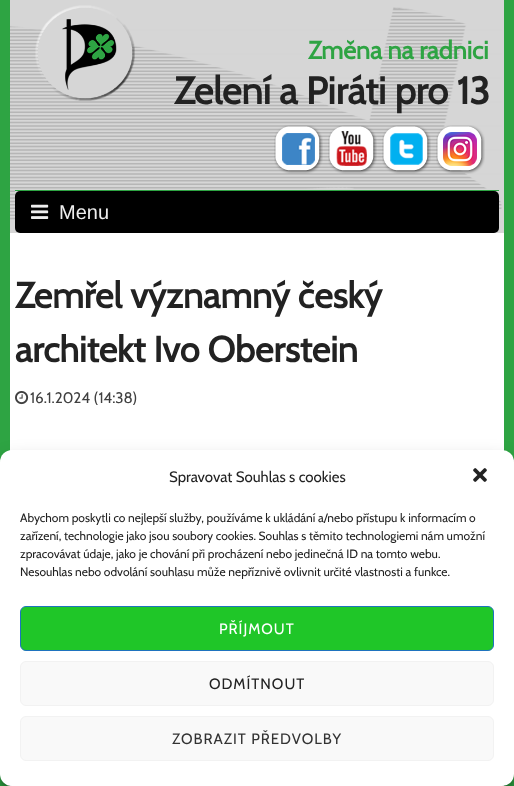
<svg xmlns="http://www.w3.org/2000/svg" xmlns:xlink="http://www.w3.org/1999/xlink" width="514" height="786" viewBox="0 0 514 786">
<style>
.cls-1{font:bold 25px Cabin;fill:#2ea443}
.cls-2{font:bold 38px Cabin;fill:#222222}
.cls-3{font:20px Liberation Sans;fill:#eeeeee}
.cls-4{font:bold 36px Cabin;fill:#222222}
.cls-5{font:15.25px Cabin;fill:#404040}
.cls-6{font:15px Cabin;fill:#222222}
.cls-7{font:12px Cabin;fill:#222222}
.cls-8{font:15px Cabin;letter-spacing:1px;fill:#ffffff}
.cls-9{font:15px Cabin;letter-spacing:1px;fill:#222222}
.cls-10{font:15px Cabin;letter-spacing:1px;fill:#333333}
</style>
<rect width="100%" height="100%" fill="#ffffff"/>
<rect fill="#d6d6d6" x="10" y="0" width="494" height="233"/>
<image xlink:href="image0.png" x="10" y="7" width="492" height="221"/>
<image xlink:href="image1.png" x="35" y="5" width="100" height="96"/>
<image xlink:href="image2.png" x="274" y="125" width="49" height="49"/>
<image xlink:href="image3.png" x="328" y="125" width="49" height="49"/>
<image xlink:href="image4.png" x="382" y="125" width="49" height="49"/>
<image xlink:href="image5.png" x="436" y="125" width="49" height="49"/>
<rect fill="#2ea443" x="15" y="190" width="484" height="1"/>
<rect fill="#d6d6d6" x="15" y="191" width="484" height="29"/>
<rect fill="#000000" x="15" y="191" width="484" height="42" rx="5"/>
<image xlink:href="image6.png" x="31" y="204" width="18" height="15"/>
<rect fill="#2ea443" x="504" y="0" width="10" height="786"/>
<rect fill="#2ea443" x="0" y="0" width="10" height="786"/>
<image xlink:href="image7.png" x="15" y="391" width="14" height="14"/>
<rect fill="#000000" fill-opacity="0.23" filter="blur(3px)" x="0" y="456" width="514" height="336" rx="12"/>
<rect fill="#000000" fill-opacity="0.19" filter="blur(10px)" x="0" y="460" width="514" height="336" rx="12"/>
<rect fill="#ffffff" x="0" y="450" width="514" height="336" rx="12"/>
<image xlink:href="image8.png" x="473" y="468" width="14" height="14"/>
<rect fill="#1fc628" stroke="#1e73be" x="20.5" y="606.5" width="473" height="44" rx="5.5"/>
<rect fill="#f9f9f9" stroke="#f2f2f2" x="20.5" y="661.5" width="473" height="44" rx="5.5"/>
<rect fill="#f9f9f9" stroke="#f2f2f2" x="20.5" y="716.5" width="473" height="44" rx="5.5"/>
<text class="cls-1" x="308" y="59">Změna na radnici</text>
<text class="cls-2" x="174" y="104">Zelení a Piráti pro 13</text>
<text class="cls-3" x="59" y="219">Menu</text>
<text class="cls-4"><tspan x="15" y="308">Zemřel významný český</tspan><tspan x="15" y="362">architekt Ivo Oberstein</tspan></text>
<text class="cls-5" x="30" y="403">16.1.2024 (14:38)</text>
<text class="cls-6" x="169" y="482">Spravovat Souhlas s cookies</text>
<text class="cls-7"><tspan x="20" y="522">Abychom poskytli co nejlepší služby, používáme k ukládání a/nebo přístupu k informacím o</tspan><tspan x="20" y="540">zařízení, technologie jako jsou soubory cookies. Souhlas s těmito technologiemi nám umožní</tspan><tspan x="20" y="558">zpracovávat údaje, jako je chování při procházení nebo jedinečná ID na tomto webu.</tspan><tspan x="20" y="576">Nesouhlas nebo odvolání souhlasu může nepříznivě ovlivnit určité vlastnosti a funkce.</tspan></text>
<text class="cls-8" x="219" y="634">PŘÍJMOUT</text>
<text class="cls-9" x="209" y="689">ODMÍTNOUT</text>
<text class="cls-10" x="172" y="744">ZOBRAZIT PŘEDVOLBY</text>
</svg>
